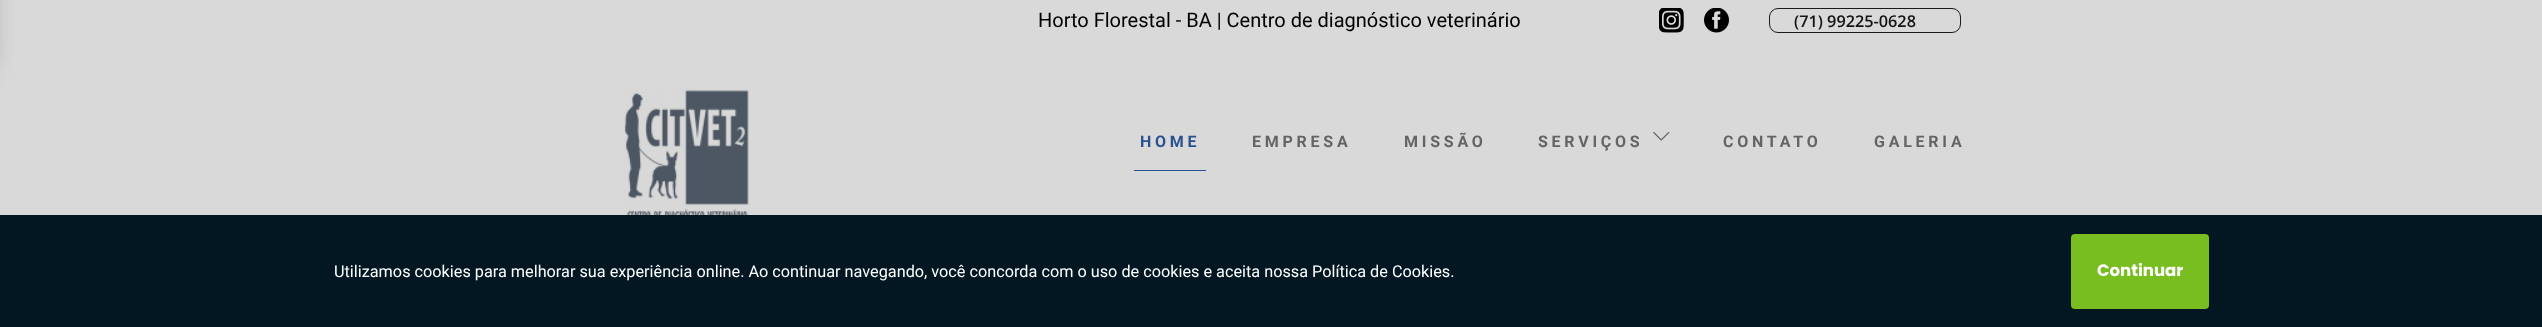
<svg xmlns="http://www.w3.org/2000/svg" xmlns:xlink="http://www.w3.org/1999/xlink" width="2542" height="327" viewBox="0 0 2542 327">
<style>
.cls-1{font:20px Roboto;fill:#000000}
.cls-2{font:600 16.25px Open Sans;fill:#141414}
.cls-3{font:bold 16px Roboto;letter-spacing:3.75px;fill:#2a5291}
.cls-4{font:bold 16px Roboto;letter-spacing:3.75px;fill:#646464}
.cls-5{font:16.25px Roboto;fill:#ffffff}
.cls-6{font:bold 16.5px Poppins;fill:#ffffff}
</style>
<rect width="100%" height="100%" fill="#d9d9d9"/>
<rect fill="#717171" filter="blur(15px)" x="-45" y="-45" width="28" height="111"/>
<image xlink:href="image0.png" x="1659" y="8" width="25" height="25"/>
<image xlink:href="image1.png" x="1704" y="8" width="25" height="25"/>
<rect fill="none" stroke="#1b1b1b" x="1769.5" y="8.5" width="191" height="24" rx="8.5"/>
<image xlink:href="image2.png" x="624" y="89" width="126" height="126"/>
<rect fill="#2a5291" x="1134" y="170" width="72" height="1"/>
<image xlink:href="image3.png" x="1653" y="131" width="17" height="10"/>
<rect fill="#021722" x="0" y="215" width="2542" height="112"/>
<rect fill="#78be20" x="2071" y="234" width="138" height="75" rx="4"/>
<text class="cls-1" x="1038" y="27">Horto Florestal - BA | Centro de diagnóstico veterinário</text>
<text class="cls-2" x="1794" y="27">(71) 99225-0628</text>
<text class="cls-3" x="1140" y="147">HOME</text>
<text class="cls-4" x="1252" y="147">EMPRESA</text>
<text class="cls-4" x="1404" y="147">MISSÃO</text>
<text class="cls-4" x="1538" y="147">SERVIÇOS</text>
<text class="cls-4" x="1723" y="147">CONTATO</text>
<text class="cls-4" x="1874" y="147">GALERIA</text>
<text class="cls-5" x="334" y="277">Utilizamos cookies para melhorar sua experiência online. Ao continuar navegando, você concorda com o uso de cookies e aceita nossa Política de Cookies.</text>
<text class="cls-6" x="2097" y="276">Continuar</text>
</svg>
